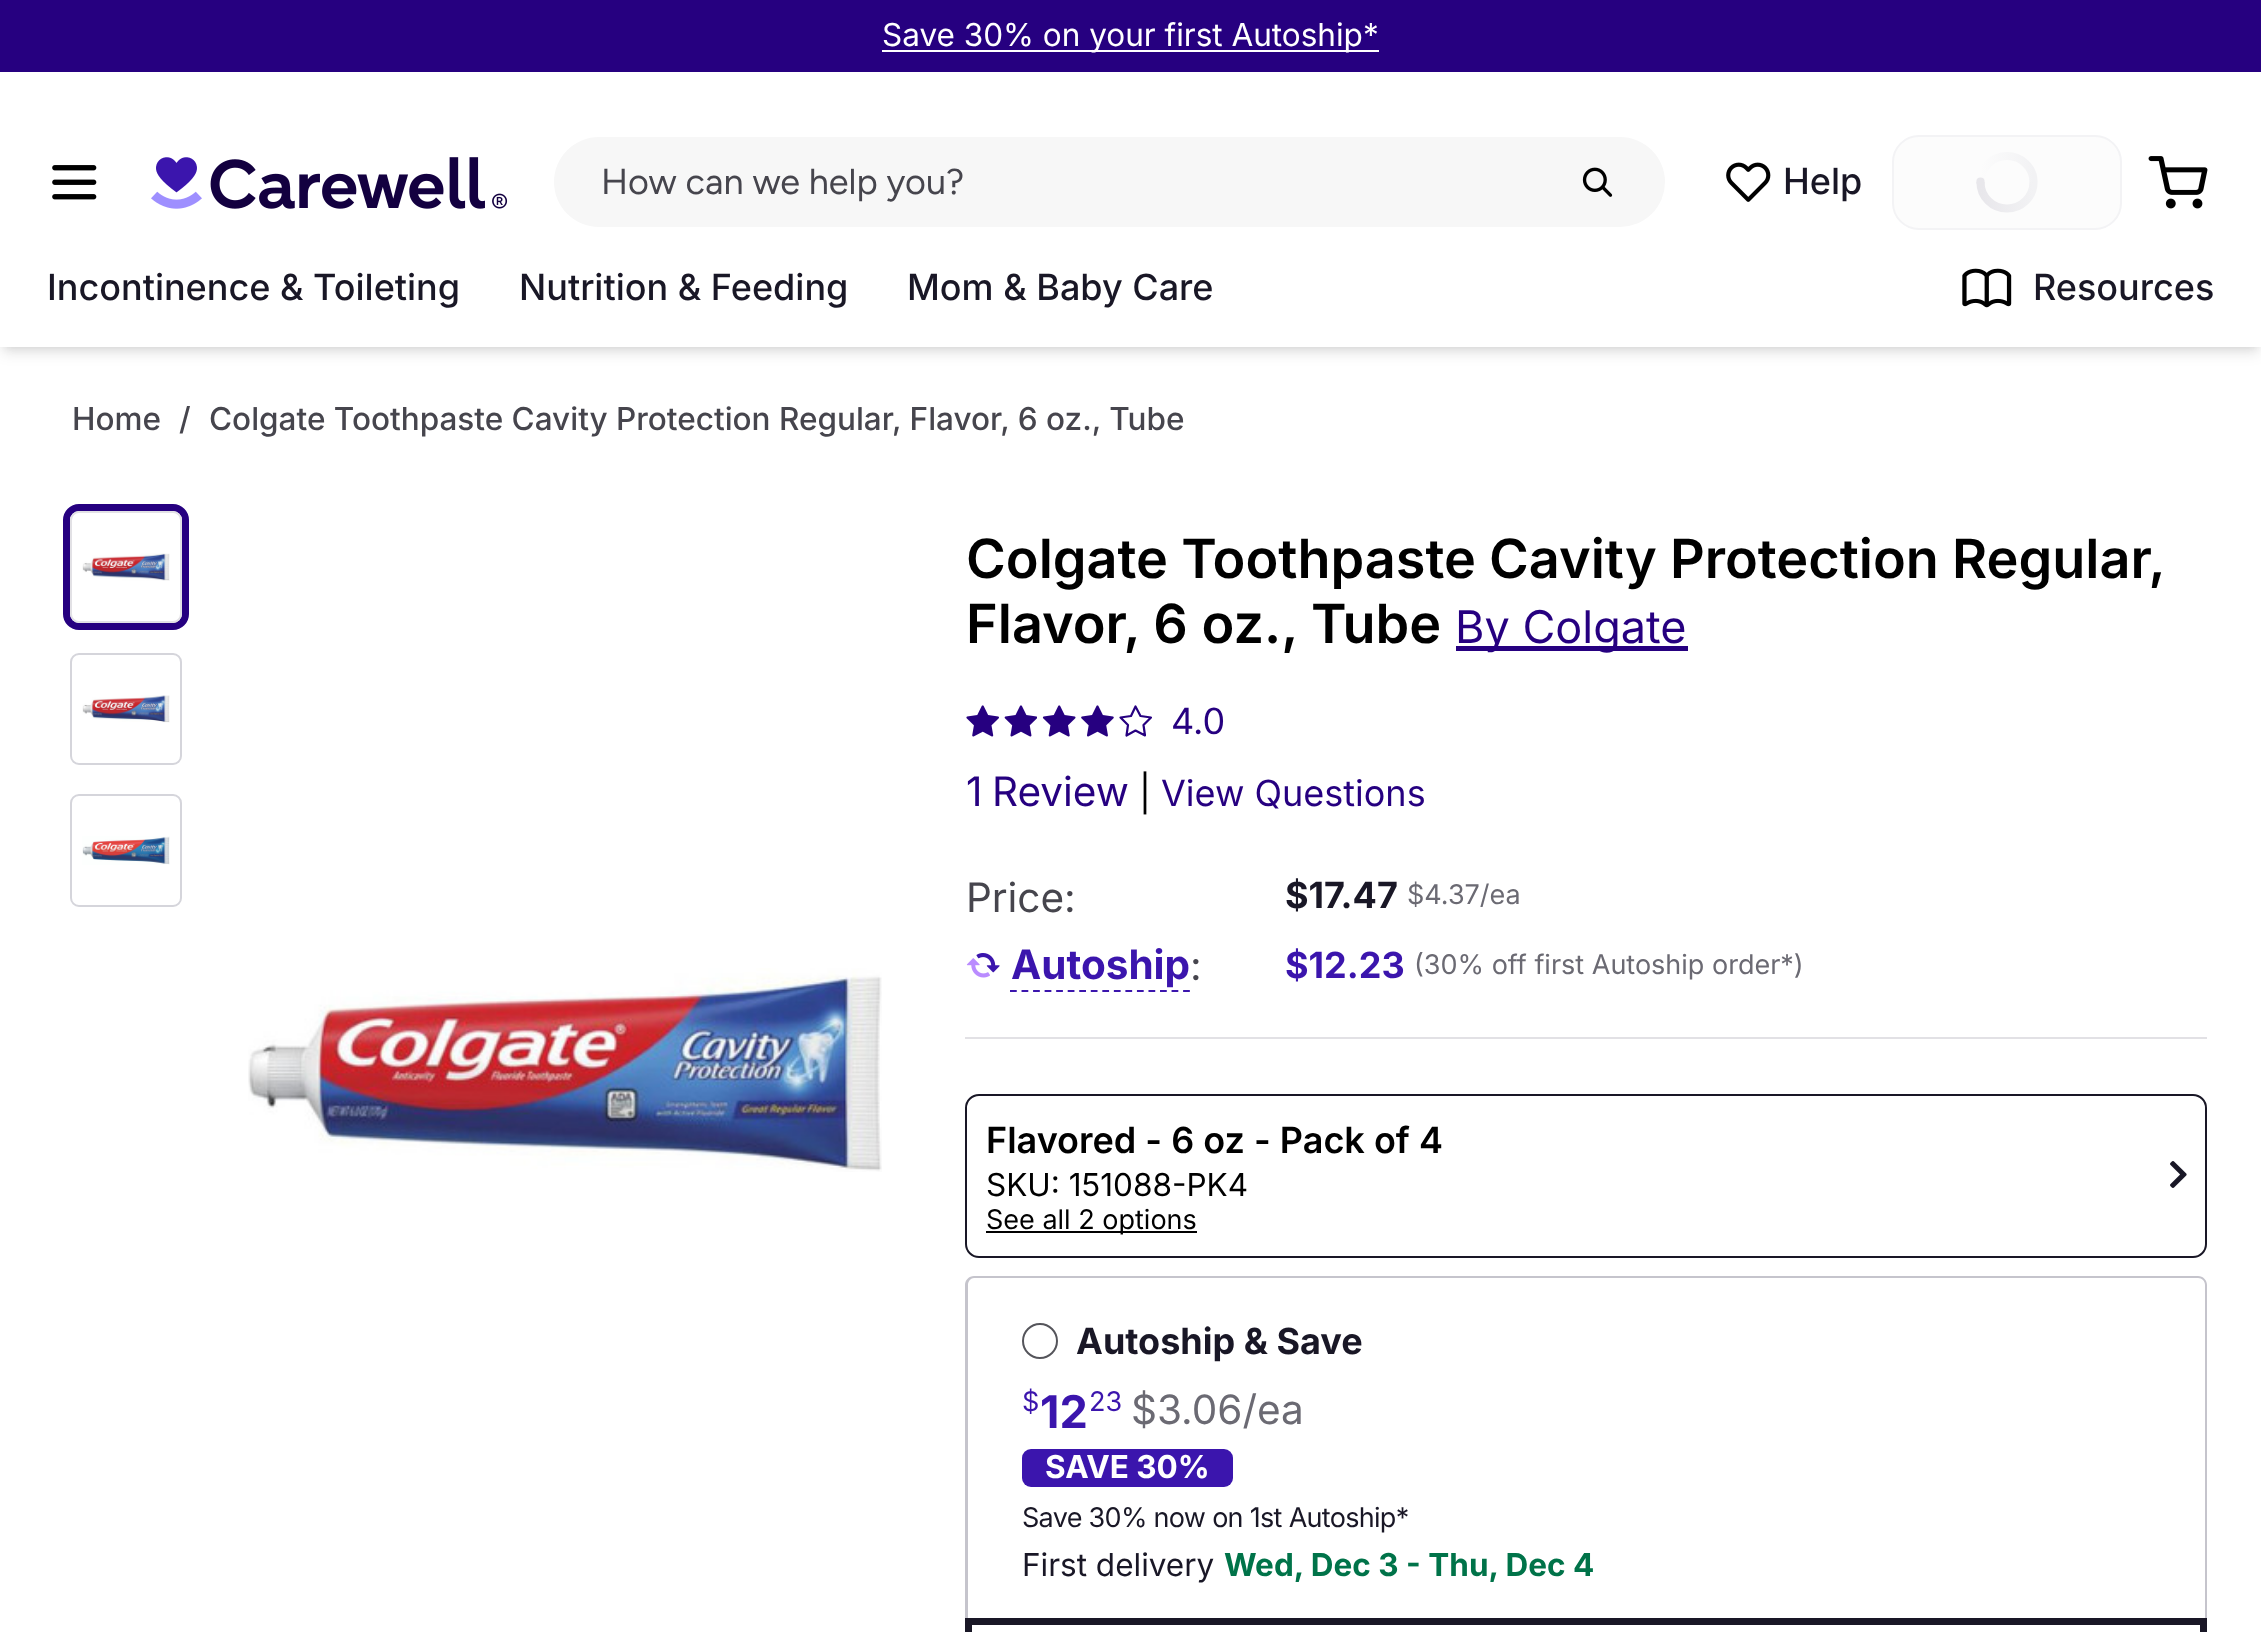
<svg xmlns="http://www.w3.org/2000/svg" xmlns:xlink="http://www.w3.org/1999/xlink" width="2261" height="1632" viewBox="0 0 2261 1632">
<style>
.cls-1{font:31.5px Inter;fill:#ffffff}
.cls-2{font:36px Figtree;fill:#46454d}
.cls-3{font:500 36px Inter;fill:#191726}
.cls-4{font:500 31.5px Inter;fill:#46454d}
.cls-5{font:600 54px Inter;fill:#000000}
.cls-6{font:45px Inter;fill:#260080}
.cls-7{font:36px Inter;fill:#260080}
.cls-8{font:40.5px Inter;fill:#260080}
.cls-9{font:36px Inter;fill:#000000}
.cls-10{font:40.5px Inter;fill:#46454d}
.cls-11{font:bold 36px Inter;fill:#191726}
.cls-12{font:27px Inter;fill:#6b6a73}
.cls-13{font:bold 40.5px Inter;fill:#3b15ad}
.cls-14{font:bold 36px Inter;fill:#3b15ad}
.cls-15{font:600 36px Inter;fill:#000000}
.cls-16{font:31.5px Inter;fill:#000000}
.cls-17{font:27px Inter;fill:#000000}
.cls-18{font:27px Inter;fill:#3b15ad}
.cls-19{font:bold 45px Inter;fill:#3b15ad}
.cls-20{font:40.5px Inter;fill:#6b6a73}
.cls-21{font:bold 31.5px Inter;fill:#ffffff}
.cls-22{font:27px Inter;letter-spacing:-0.7px;fill:#191726}
.cls-23{font:31.5px Inter;fill:#191726}
.cls-24{font:bold 31.5px Inter;fill:#007349}
</style>
<defs>
<linearGradient id="g1" gradientUnits="userSpaceOnUse" x1="1981" y1="156" x2="2033" y2="156"><stop offset="0" stop-color="#fcfcfc"/><stop offset="1" stop-color="#f2f2f4"/></linearGradient>
<linearGradient id="g2" gradientUnits="userSpaceOnUse" x1="1981" y1="182" x2="2033" y2="182"><stop offset="0" stop-color="#e8e7eb"/><stop offset="1" stop-color="#f2f2f4"/></linearGradient>
</defs>
<rect width="100%" height="100%" fill="#ffffff"/>
<rect fill="#000000" fill-opacity="0.1" filter="blur(4.5px)" x="5" y="9" width="2252" height="338"/>
<rect fill="#000000" fill-opacity="0.1" filter="blur(7px)" x="2" y="11" width="2257" height="342"/>
<rect fill="#ffffff" x="0" y="72" width="2261" height="275"/>
<rect fill="#260080" x="0" y="0" width="2261" height="72"/>
<rect fill="#ffffff" x="882" y="50" width="497" height="2"/>
<image xlink:href="image0.png" x="52" y="165" width="45" height="35"/>
<image xlink:href="image1.png" x="151" y="157" width="357" height="52"/>
<rect fill="#f7f7f7" x="554" y="137" width="1111" height="90" rx="45"/>
<image xlink:href="image2.png" x="1582" y="167" width="31" height="30"/>
<image xlink:href="image3.png" x="1726" y="162" width="45" height="40"/>
<rect fill="#fcfcfc" stroke="#f3f3f5" stroke-width="2" x="1893" y="136" width="228" height="93" rx="26"/>
<path fill="none" stroke="url(#g1)" stroke-width="8.2" d="M1980.5 182C1980.5 167.5 1992.5 156 2007 156C2021.5 156 2033.5 167.5 2033.5 182"/>
<path fill="none" stroke="url(#g2)" stroke-width="8.2" d="M2033.5 182C2033.5 197 2021.5 208.5 2007 208.5C1992.5 208.5 1980.5 197 1980.5 182"/>
<path fill="none" stroke="#e8e7eb" stroke-width="8.2" stroke-linecap="round" d="M1980.5 182V181.5"/>
<image xlink:href="image4.png" x="2148" y="156" width="60" height="53"/>
<image xlink:href="image5.png" x="1962" y="268" width="50" height="40"/>
<rect fill="none" stroke="#260080" stroke-width="7" x="66.5" y="507.5" width="119" height="119" rx="12.5"/>
<rect fill="none" stroke="#e2e1e5" stroke-width="2" x="71" y="512" width="110" height="110" rx="8"/>
<image xlink:href="image6.png" x="82" y="553" width="88" height="28"/>
<rect fill="none" stroke="#d5d5db" stroke-width="2" x="71" y="654" width="110" height="110" rx="8"/>
<image xlink:href="image7.png" x="82" y="695" width="88" height="28"/>
<rect fill="none" stroke="#d5d5db" stroke-width="2" x="71" y="795" width="110" height="111" rx="8"/>
<image xlink:href="image8.png" x="82" y="836" width="88" height="29"/>
<image xlink:href="image9.png" x="248" y="968" width="634" height="204"/>
<rect fill="#260080" x="1456" y="646" width="232" height="5"/>
<image xlink:href="image10.png" x="966" y="705" width="33" height="32"/>
<image xlink:href="image11.png" x="1004" y="705" width="33" height="32"/>
<image xlink:href="image12.png" x="1042" y="705" width="34" height="32"/>
<image xlink:href="image13.png" x="1081" y="705" width="33" height="32"/>
<path fill="none" stroke="#260080" stroke-width="2.2" stroke-linecap="round" stroke-linejoin="round" d="M1135.5 706.5L1140.5 716L1151 717.5L1143.5 725L1145 735.5L1135.5 730.5L1126.5 735.5L1128 725L1120.5 717.5L1131 716Z"/>
<image xlink:href="image14.png" x="966" y="953" width="34" height="25"/>
<path fill="none" stroke="#3b15ad" stroke-width="2.2" stroke-dasharray="6.75 4.79" d="M1010 991H1190"/>
<rect fill="#e2e1e5" x="965" y="1037" width="1242" height="2"/>
<rect fill="none" stroke="#191726" stroke-width="2" x="966" y="1095" width="1240" height="162" rx="13"/>
<rect fill="#000000" x="986" y="1231" width="211" height="2"/>
<image xlink:href="image15.png" x="2170" y="1161" width="17" height="27"/>
<path fill="#c5c4cc" fill-rule="evenodd" d="M974 1276H2198C2203 1276 2207 1280 2207 1285V1618H965V1285C965 1280 969 1276 974 1276ZM974 1278H2198C2202 1278 2205 1281 2205 1285V1618H968V1285C968 1281 971 1278 974 1278Z"/>
<circle fill="none" stroke="#55555b" stroke-width="2" cx="1040" cy="1341" r="17"/>
<rect fill="#3b15ad" x="1022" y="1449" width="211" height="38" rx="9"/>
<rect fill="none" stroke="#191726" stroke-width="7" x="968.5" y="1621.5" width="1235" height="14"/>
<text class="cls-1" x="882" y="46">Save 30% on your first Autoship*</text>
<text class="cls-2" x="601" y="194">How can we help you?</text>
<text class="cls-3" x="1783" y="194">Help</text>
<text class="cls-3" x="47" y="300">Incontinence &amp; Toileting</text>
<text class="cls-3" x="519" y="300">Nutrition &amp; Feeding</text>
<text class="cls-3" x="907" y="300">Mom &amp; Baby Care</text>
<text class="cls-3" x="2033" y="300">Resources</text>
<text class="cls-4" x="72" y="430">Home</text>
<text class="cls-4" x="179" y="430">/</text>
<text class="cls-4" x="209" y="430">Colgate Toothpaste Cavity Protection Regular, Flavor, 6 oz., Tube</text>
<text class="cls-5"><tspan x="966" y="578" word-spacing="-0.5">Colgate Toothpaste Cavity Protection Regular,</tspan><tspan x="966" y="643">Flavor, 6 oz., Tube</tspan></text>
<text class="cls-6" x="1455" y="643">By Colgate</text>
<text class="cls-7" x="1171" y="734">4.0</text>
<text class="cls-8" x="966" y="806">1</text>
<text class="cls-8" x="992" y="806">Review</text>
<text class="cls-9" x="1139" y="806">|</text>
<text class="cls-7" x="1161" y="806">View Questions</text>
<text class="cls-10" x="966" y="912">Price:</text>
<text class="cls-11" x="1285" y="908">$17.47</text>
<text class="cls-12" x="1407" y="904">$4.37/ea</text>
<text class="cls-13" x="1011" y="979">Autoship</text>
<text class="cls-10" x="1190" y="980">:</text>
<text class="cls-14" x="1285" y="978">$12.23</text>
<text class="cls-12" x="1414" y="974">(30% off first Autoship order*)</text>
<text class="cls-15" x="986" y="1153">Flavored - 6 oz - Pack of 4</text>
<text class="cls-16" x="986" y="1196">SKU: 151088-PK4</text>
<text class="cls-17" x="986" y="1229">See all 2 options</text>
<text class="cls-11" x="1076" y="1354">Autoship &amp; Save</text>
<text class="cls-18" x="1022" y="1411">$</text>
<text class="cls-19" x="1040" y="1428">12</text>
<text class="cls-18" x="1089" y="1411">23</text>
<text class="cls-20" x="1131" y="1424">$3.06/ea</text>
<text class="cls-21" x="1045" y="1478">SAVE 30%</text>
<text class="cls-22" x="1022" y="1527">Save 30% now on 1st Autoship*</text>
<text class="cls-23" x="1022" y="1576">First delivery</text>
<text class="cls-24" x="1224" y="1576">Wed, Dec 3 - Thu, Dec 4</text>
</svg>
